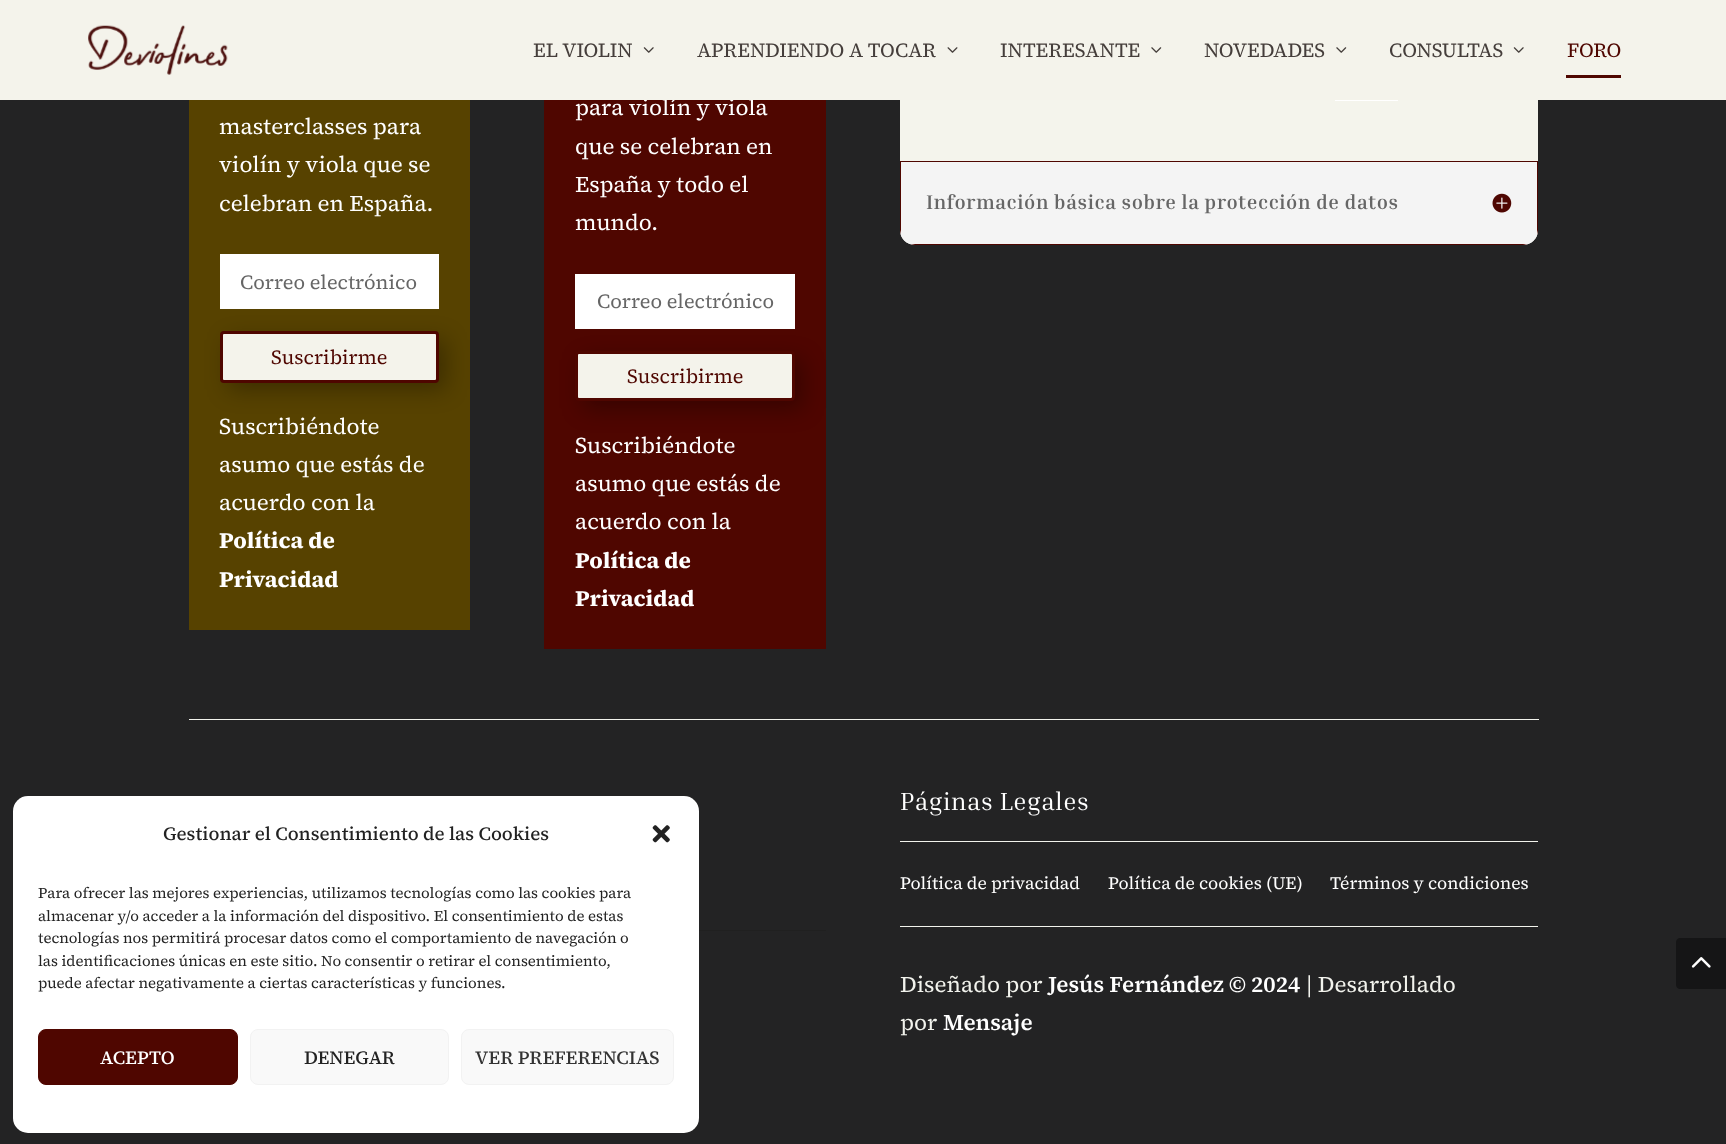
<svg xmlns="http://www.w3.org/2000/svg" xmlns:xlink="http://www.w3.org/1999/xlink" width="1726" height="1144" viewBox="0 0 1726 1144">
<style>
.cls-1{font:22.5px 'Source Serif 4';fill:#ffffff}
.cls-2{font:20px 'Source Serif 4';fill:#666666}
.cls-3{font:20px 'Source Serif 4';fill:#4f0600}
.cls-4{font:bold 22.5px 'Source Serif 4';fill:#ffffff}
.cls-5{font:20px 'Source Serif 4';fill:#453e3b}
.cls-6{font:bold 20px Inria Serif;letter-spacing:0.6px;fill:#666666}
.cls-7{font:25px Inria Serif;letter-spacing:0.6px;fill:#ffffff}
.cls-8{font:17.5px 'Source Serif 4';fill:#ffffff}
.cls-9{font:22.5px 'Source Serif 4';fill:#f2f3ed}
.cls-10{font:600 22.5px 'Source Serif 4';fill:#ffffff}
.cls-11{font:500 18.75px 'Source Serif 4';fill:#222222}
.cls-12{font:15px 'Source Serif 4';fill:#222222}
.cls-13{font:500 18.75px 'Source Serif 4';fill:#ffffff}
.cls-14{font:500 18.75px 'Source Serif 4';fill:#333333}
</style>
<rect width="100%" height="100%" fill="#232324"/>
<rect fill="#574200" x="189" y="100" width="281" height="530"/>
<rect fill="#ffffff" x="220" y="254" width="219" height="55"/>
<rect fill="#000000" fill-opacity="0.3" filter="blur(11px)" x="228" y="339" width="218" height="51" rx="4"/>
<rect fill="#f4f3eb" stroke="#4f0600" stroke-width="3" x="221.5" y="332.5" width="216" height="49" rx="2.5"/>
<rect fill="#4f0600" x="544" y="100" width="282" height="549"/>
<rect fill="#ffffff" x="575" y="274" width="220" height="55"/>
<rect fill="#000000" fill-opacity="0.3" filter="blur(11px)" x="583" y="359" width="220" height="50" rx="4"/>
<rect fill="#f4f3eb" stroke="#4f0600" stroke-width="3" x="576.5" y="352.5" width="217" height="47" rx="2.5"/>
<rect fill="#f4f4ec" x="900" y="-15" width="638" height="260" rx="15"/>
<rect fill="#ffffff" x="1335" y="100" width="63" height="1"/>
<path fill="#f4f4f4" d="M900 161H1538V230C1538 238.5 1531.5 245 1523 245H915C906.5 245 900 238.5 900 230Z"/>
<path fill="#4f0600" fill-rule="evenodd" d="M901 162H1537V235L1538 230V161H900V230L901 235ZM1523 245L1528 244H910L915 245Z"/>
<image xlink:href="image4.png" x="1492" y="193" width="20" height="20"/>
<rect fill="#f2f3ed" x="189" y="719" width="1350" height="1"/>
<rect fill="#202020" x="699" y="930" width="127" height="1"/>
<rect fill="#f2f3ed" x="900" y="841" width="638" height="1"/>
<rect fill="#f2f3ed" x="900" y="926" width="638" height="1"/>
<rect fill="#ffffff" x="13" y="796" width="686" height="337" rx="15"/>
<image xlink:href="image5.png" x="652" y="825" width="18" height="18"/>
<rect fill="#4f0600" stroke="#4f0600" x="38.5" y="1029.5" width="199" height="55" rx="7.5"/>
<rect fill="#f9f9f9" stroke="#f2f2f2" x="250.5" y="1029.5" width="198" height="55" rx="7.5"/>
<rect fill="#f9f9f9" stroke="#f2f2f2" x="461.5" y="1029.5" width="212" height="55" rx="7.5"/>
<path fill="#151516" d="M1680 938H1726V989H1680C1678 989 1676 987 1676 985V942C1676 940 1678 938 1680 938Z"/>
<image xlink:href="image6.png" x="1691" y="957" width="20" height="11"/>
<text class="cls-1"><tspan x="219" y="134">masterclasses para</tspan><tspan x="219" y="172">violín y viola que se</tspan><tspan x="219" y="211">celebran en España.</tspan></text>
<text class="cls-2" x="240" y="289">Correo electrónico</text>
<text class="cls-3" x="271" y="364">Suscribirme</text>
<text class="cls-1"><tspan x="219" y="434">Suscribiéndote</tspan><tspan x="219" y="472">asumo que estás de</tspan><tspan x="219" y="510">acuerdo con la</tspan></text>
<text class="cls-4"><tspan x="219" y="548">Política de</tspan><tspan x="219" y="587">Privacidad</tspan></text>
<text class="cls-1" x="575" y="115">para violín y viola</text>
<rect fill="#f4f3eb" x="0" y="0" width="1726" height="100"/>
<rect fill="#4f0600" x="1566" y="75" width="55" height="3"/>
<text class="cls-3" x="1567" y="57">FORO</text>
<image xlink:href="image1.png" x="1513" y="47" width="11" height="6"/>
<text class="cls-5" x="1389" y="57">CONSULTAS</text>
<image xlink:href="image3.png" x="1336" y="47" width="11" height="6"/>
<text class="cls-5" x="1204" y="57">NOVEDADES</text>
<image xlink:href="image3.png" x="1151" y="47" width="11" height="6"/>
<text class="cls-5" x="1000" y="57">INTERESANTE</text>
<image xlink:href="image2.png" x="947" y="47" width="11" height="6"/>
<text class="cls-5" x="697" y="57">APRENDIENDO A TOCAR</text>
<image xlink:href="image1.png" x="643" y="47" width="11" height="6"/>
<text class="cls-5" x="533" y="57">EL VIOLIN</text>
<image xlink:href="image0.png" x="88" y="25" width="140" height="50"/>
<text class="cls-1"><tspan x="575" y="154">que se celebran en</tspan><tspan x="575" y="192">España y todo el</tspan><tspan x="575" y="230">mundo.</tspan></text>
<text class="cls-2" x="597" y="308">Correo electrónico</text>
<text class="cls-3" x="627" y="383">Suscribirme</text>
<text class="cls-1"><tspan x="575" y="453">Suscribiéndote</tspan><tspan x="575" y="491">asumo que estás de</tspan><tspan x="575" y="529">acuerdo con la</tspan></text>
<text class="cls-4"><tspan x="575" y="568">Política de</tspan><tspan x="575" y="606">Privacidad</tspan></text>
<text class="cls-6" x="926" y="209">Información básica sobre la protección de datos</text>
<text class="cls-7" x="900" y="810">Páginas Legales</text>
<text class="cls-8" x="900" y="889">Política de privacidad</text>
<text class="cls-8" x="1108" y="889">Política de cookies (UE)</text>
<text class="cls-8" x="1330" y="889">Términos y condiciones</text>
<text class="cls-9" x="900" y="992">Diseñado por</text>
<text class="cls-10" x="1048" y="992">Jesús Fernández © 2024</text>
<text class="cls-9" x="1306" y="992">| Desarrollado</text>
<text class="cls-9" x="900" y="1030">por</text>
<text class="cls-10" x="943" y="1030">Mensaje</text>
<text class="cls-11" x="163" y="840">Gestionar el Consentimiento de las Cookies</text>
<text class="cls-12"><tspan x="38" y="898">Para ofrecer las mejores experiencias, utilizamos tecnologías como las cookies para</tspan><tspan x="38" y="921">almacenar y/o acceder a la información del dispositivo. El consentimiento de estas</tspan><tspan x="38" y="943">tecnologías nos permitirá procesar datos como el comportamiento de navegación o</tspan><tspan x="38" y="966">las identificaciones únicas en este sitio. No consentir o retirar el consentimiento,</tspan><tspan x="38" y="988">puede afectar negativamente a ciertas características y funciones.</tspan></text>
<text class="cls-13" x="100" y="1064">ACEPTO</text>
<text class="cls-11" x="304" y="1064">DENEGAR</text>
<text class="cls-14" x="475" y="1064">VER PREFERENCIAS</text>
</svg>
